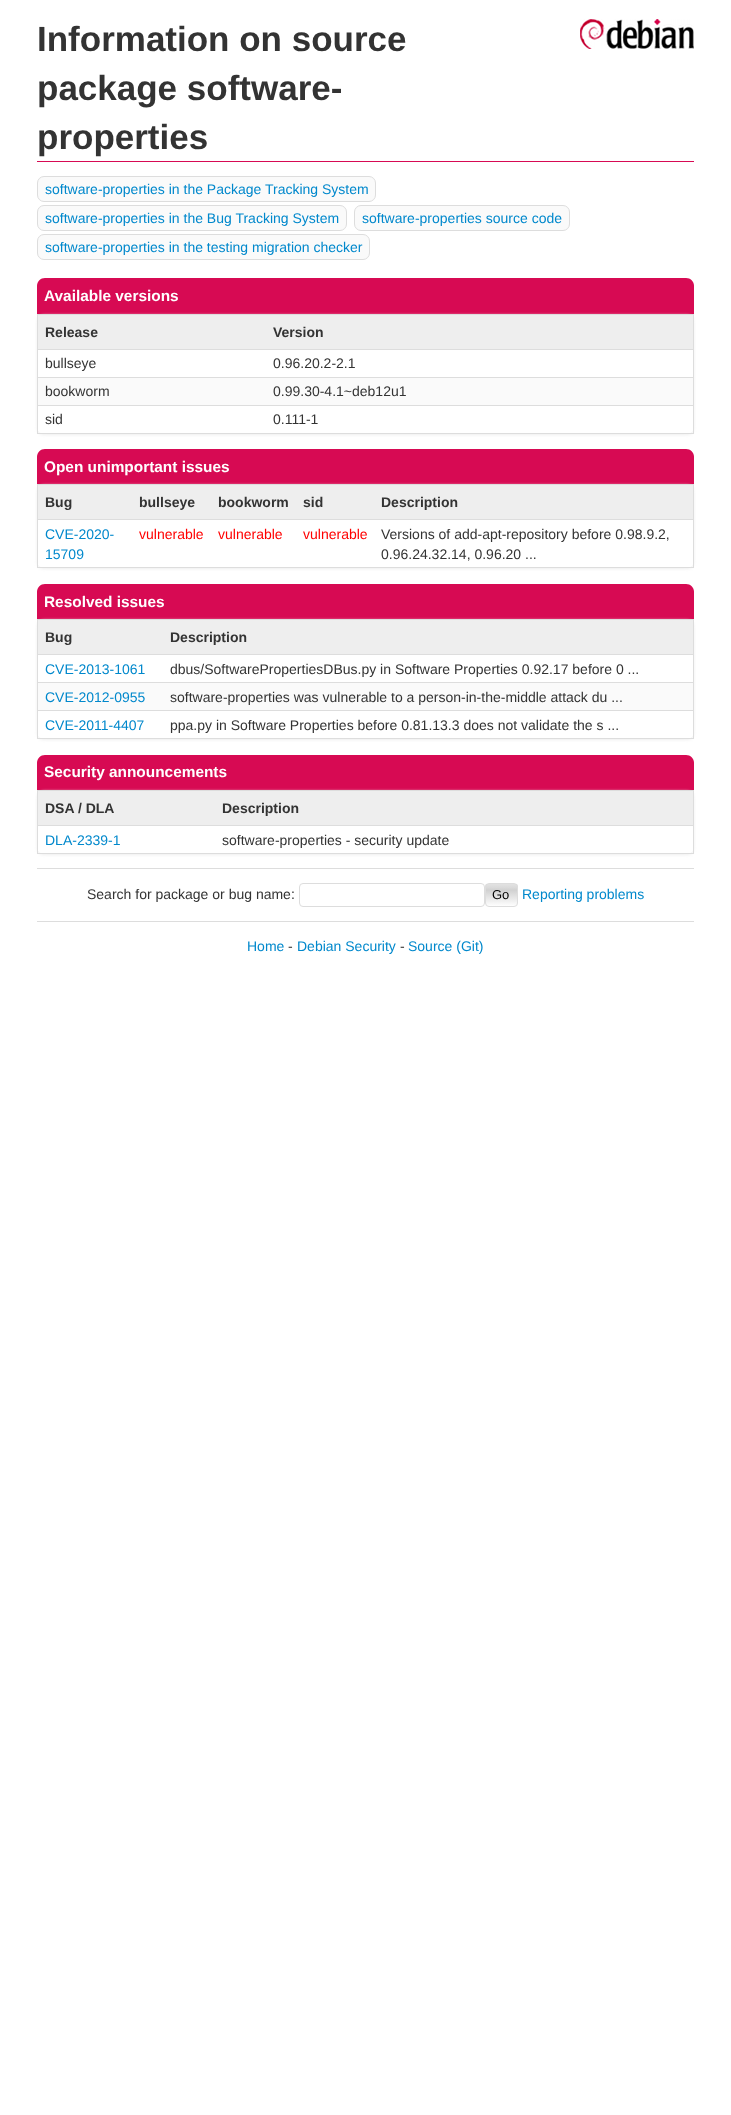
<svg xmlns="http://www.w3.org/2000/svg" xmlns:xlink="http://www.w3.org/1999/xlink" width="731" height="2115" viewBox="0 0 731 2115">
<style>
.cls-1{font:bold 35px Liberation Sans;fill:#333333}
.cls-2{font:14px Liberation Sans;fill:#0088cc}
.cls-3{font:bold 15.4px Liberation Sans;fill:#ffffff}
.cls-4{font:bold 14px Liberation Sans;fill:#333333}
.cls-5{font:14px Liberation Sans;fill:#333333}
.cls-6{font:14px Liberation Sans;fill:#ff0000}
.cls-7{font:13px Liberation Sans;fill:#000000}
</style>
<defs>
<clipPath id="clip1"><path d="M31 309H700V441H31ZM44 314H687C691 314 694 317 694 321V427C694 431 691 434 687 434H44C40 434 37 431 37 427V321C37 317 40 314 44 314Z" clip-rule="evenodd"/></clipPath>
<clipPath id="clip2"><path d="M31 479H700V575H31ZM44 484H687C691 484 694 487 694 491V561C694 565 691 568 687 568H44C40 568 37 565 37 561V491C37 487 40 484 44 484Z" clip-rule="evenodd"/></clipPath>
<clipPath id="clip3"><path d="M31 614H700V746H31ZM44 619H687C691 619 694 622 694 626V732C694 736 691 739 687 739H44C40 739 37 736 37 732V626C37 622 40 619 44 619Z" clip-rule="evenodd"/></clipPath>
<clipPath id="clip4"><path d="M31 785H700V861H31ZM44 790H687C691 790 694 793 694 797V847C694 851 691 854 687 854H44C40 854 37 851 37 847V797C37 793 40 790 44 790Z" clip-rule="evenodd"/></clipPath>
<clipPath id="clip5"><rect x="485" y="883" width="33" height="24" rx="4"/></clipPath>
<linearGradient id="g1" gradientUnits="userSpaceOnUse" x1="502" y1="884" x2="502" y2="906"><stop offset="0" stop-color="#e2e2e2"/><stop offset="0.15" stop-color="#dbdbdb"/><stop offset="0.28" stop-color="#d1d1d1"/><stop offset="1" stop-color="#fefefe"/></linearGradient>
</defs>
<rect width="100%" height="100%" fill="#ffffff"/>
<image xlink:href="image0.png" x="580" y="19" width="114" height="30"/>
<rect fill="#d70a53" x="37" y="161" width="657" height="1"/>
<rect fill="#fafafa" stroke="#dddddd" x="37.5" y="176.5" width="338" height="25" rx="6.5"/>
<rect fill="#fafafa" stroke="#dddddd" x="37.5" y="205.5" width="309" height="25" rx="6.5"/>
<rect fill="#fafafa" stroke="#dddddd" x="354.5" y="205.5" width="215" height="25" rx="6.5"/>
<rect fill="#fafafa" stroke="#dddddd" x="37.5" y="234.5" width="332" height="25" rx="6.5"/>
<path fill="#d70a53" d="M45 278H686C690.5 278 694 281.5 694 286V314H37V286C37 281.5 40.5 278 45 278Z"/>
<g clip-path="url(#clip1)">
<rect fill="#eeeeee" filter="blur(1.5px)" x="37" y="315" width="657" height="120" rx="7"/>
</g>
<rect fill="#dddddd" x="37" y="314" width="657" height="1"/>
<rect fill="#dddddd" x="693" y="314" width="1" height="120"/>
<rect fill="#dddddd" x="37" y="433" width="657" height="1"/>
<rect fill="#dddddd" x="37" y="314" width="1" height="120"/>
<rect fill="#eeeeee" x="38" y="315" width="655" height="34"/>
<rect fill="#dddddd" x="37" y="349" width="657" height="1"/>
<rect fill="#dddddd" x="37" y="377" width="657" height="1"/>
<rect fill="#fafafa" x="38" y="378" width="655" height="27"/>
<rect fill="#dddddd" x="37" y="405" width="657" height="1"/>
<path fill="#d70a53" d="M45 449H686C690.5 449 694 452.5 694 457V484H37V457C37 452.5 40.5 449 45 449Z"/>
<g clip-path="url(#clip2)">
<rect fill="#eeeeee" filter="blur(1.5px)" x="37" y="485" width="657" height="84" rx="7"/>
</g>
<rect fill="#dddddd" x="37" y="484" width="657" height="1"/>
<rect fill="#dddddd" x="693" y="484" width="1" height="84"/>
<rect fill="#dddddd" x="37" y="567" width="657" height="1"/>
<rect fill="#dddddd" x="37" y="484" width="1" height="84"/>
<rect fill="#eeeeee" x="38" y="485" width="655" height="34"/>
<rect fill="#dddddd" x="37" y="519" width="657" height="1"/>
<path fill="#d70a53" d="M45 584H686C690.5 584 694 587.5 694 592V619H37V592C37 587.5 40.5 584 45 584Z"/>
<g clip-path="url(#clip3)">
<rect fill="#eeeeee" filter="blur(1.5px)" x="37" y="620" width="657" height="120" rx="7"/>
</g>
<rect fill="#dddddd" x="37" y="619" width="657" height="1"/>
<rect fill="#dddddd" x="693" y="619" width="1" height="120"/>
<rect fill="#dddddd" x="37" y="738" width="657" height="1"/>
<rect fill="#dddddd" x="37" y="619" width="1" height="120"/>
<rect fill="#eeeeee" x="38" y="620" width="655" height="34"/>
<rect fill="#dddddd" x="37" y="654" width="657" height="1"/>
<rect fill="#dddddd" x="37" y="682" width="657" height="1"/>
<rect fill="#fafafa" x="38" y="683" width="655" height="27"/>
<rect fill="#dddddd" x="37" y="710" width="657" height="1"/>
<path fill="#d70a53" d="M45 755H686C690.5 755 694 758.5 694 763V790H37V763C37 758.5 40.5 755 45 755Z"/>
<g clip-path="url(#clip4)">
<rect fill="#eeeeee" filter="blur(1.5px)" x="37" y="791" width="657" height="64" rx="7"/>
</g>
<rect fill="#dddddd" x="37" y="790" width="657" height="1"/>
<rect fill="#dddddd" x="693" y="790" width="1" height="64"/>
<rect fill="#dddddd" x="37" y="853" width="657" height="1"/>
<rect fill="#dddddd" x="37" y="790" width="1" height="64"/>
<rect fill="#eeeeee" x="38" y="791" width="655" height="34"/>
<rect fill="#dddddd" x="37" y="825" width="657" height="1"/>
<rect fill="#dddddd" x="37" y="868" width="657" height="1"/>
<rect fill="#dddddd" x="37" y="921" width="657" height="1"/>
<rect fill="none" stroke="#dddddd" x="299.5" y="883.5" width="185" height="23" rx="3.5"/>
<g clip-path="url(#clip5)">
<rect fill="url(#g1)" x="485" y="884" width="33" height="22"/>
</g>
<rect fill="none" stroke="#dddddd" x="485.5" y="883.5" width="32" height="23" rx="3.5"/>
<text class="cls-1"><tspan x="37" y="51">Information on source</tspan><tspan x="37" y="100">package software-</tspan><tspan x="37" y="149">properties</tspan></text>
<text class="cls-2" x="45" y="194">software-properties in the Package Tracking System</text>
<text class="cls-2" x="45" y="223">software-properties in the Bug Tracking System</text>
<text class="cls-2" x="362" y="223">software-properties source code</text>
<text class="cls-2" x="45" y="252">software-properties in the testing migration checker</text>
<text class="cls-3" x="44" y="301">Available versions</text>
<text class="cls-4" x="45" y="337">Release</text>
<text class="cls-4" x="273" y="337">Version</text>
<text class="cls-5" x="45" y="368">bullseye</text>
<text class="cls-5" x="273" y="368">0.96.20.2-2.1</text>
<text class="cls-5" x="45" y="396">bookworm</text>
<text class="cls-5" x="273" y="396">0.99.30-4.1~deb12u1</text>
<text class="cls-5" x="45" y="424">sid</text>
<text class="cls-5" x="273" y="424">0.111-1</text>
<text class="cls-3" x="44" y="472">Open unimportant issues</text>
<text class="cls-4" x="45" y="507">Bug</text>
<text class="cls-4" x="139" y="507">bullseye</text>
<text class="cls-4" x="218" y="507">bookworm</text>
<text class="cls-4" x="303" y="507">sid</text>
<text class="cls-4" x="381" y="507">Description</text>
<text class="cls-2"><tspan x="45" y="539">CVE-2020-</tspan><tspan x="45" y="559">15709</tspan></text>
<text class="cls-6" x="139" y="539">vulnerable</text>
<text class="cls-6" x="218" y="539">vulnerable</text>
<text class="cls-6" x="303" y="539">vulnerable</text>
<text class="cls-5"><tspan x="381" y="539">Versions of add-apt-repository before 0.98.9.2,</tspan><tspan x="381" y="559">0.96.24.32.14, 0.96.20 ...</tspan></text>
<text class="cls-3" x="44" y="607">Resolved issues</text>
<text class="cls-4" x="45" y="642">Bug</text>
<text class="cls-4" x="170" y="642">Description</text>
<text class="cls-2" x="45" y="674">CVE-2013-1061</text>
<text class="cls-5" x="170" y="674">dbus/SoftwarePropertiesDBus.py in Software Properties 0.92.17 before 0 ...</text>
<text class="cls-2" x="45" y="702">CVE-2012-0955</text>
<text class="cls-5" x="170" y="702">software-properties was vulnerable to a person-in-the-middle attack du ...</text>
<text class="cls-2" x="45" y="730">CVE-2011-4407</text>
<text class="cls-5" x="170" y="730">ppa.py in Software Properties before 0.81.13.3 does not validate the s ...</text>
<text class="cls-3" x="44" y="777">Security announcements</text>
<text class="cls-4" x="45" y="813">DSA / DLA</text>
<text class="cls-4" x="222" y="813">Description</text>
<text class="cls-2" x="45" y="845">DLA-2339-1</text>
<text class="cls-5" x="222" y="845">software-properties - security update</text>
<text class="cls-5" x="87" y="899">Search for package or bug name:</text>
<text class="cls-7" x="492" y="899">Go</text>
<text class="cls-2" x="522" y="899">Reporting problems</text>
<text class="cls-2" x="247" y="951">Home</text>
<text class="cls-5" x="288" y="951">-</text>
<text class="cls-2" x="297" y="951">Debian Security</text>
<text class="cls-5" x="400" y="951">-</text>
<text class="cls-2" x="408" y="951">Source (Git)</text>
</svg>
